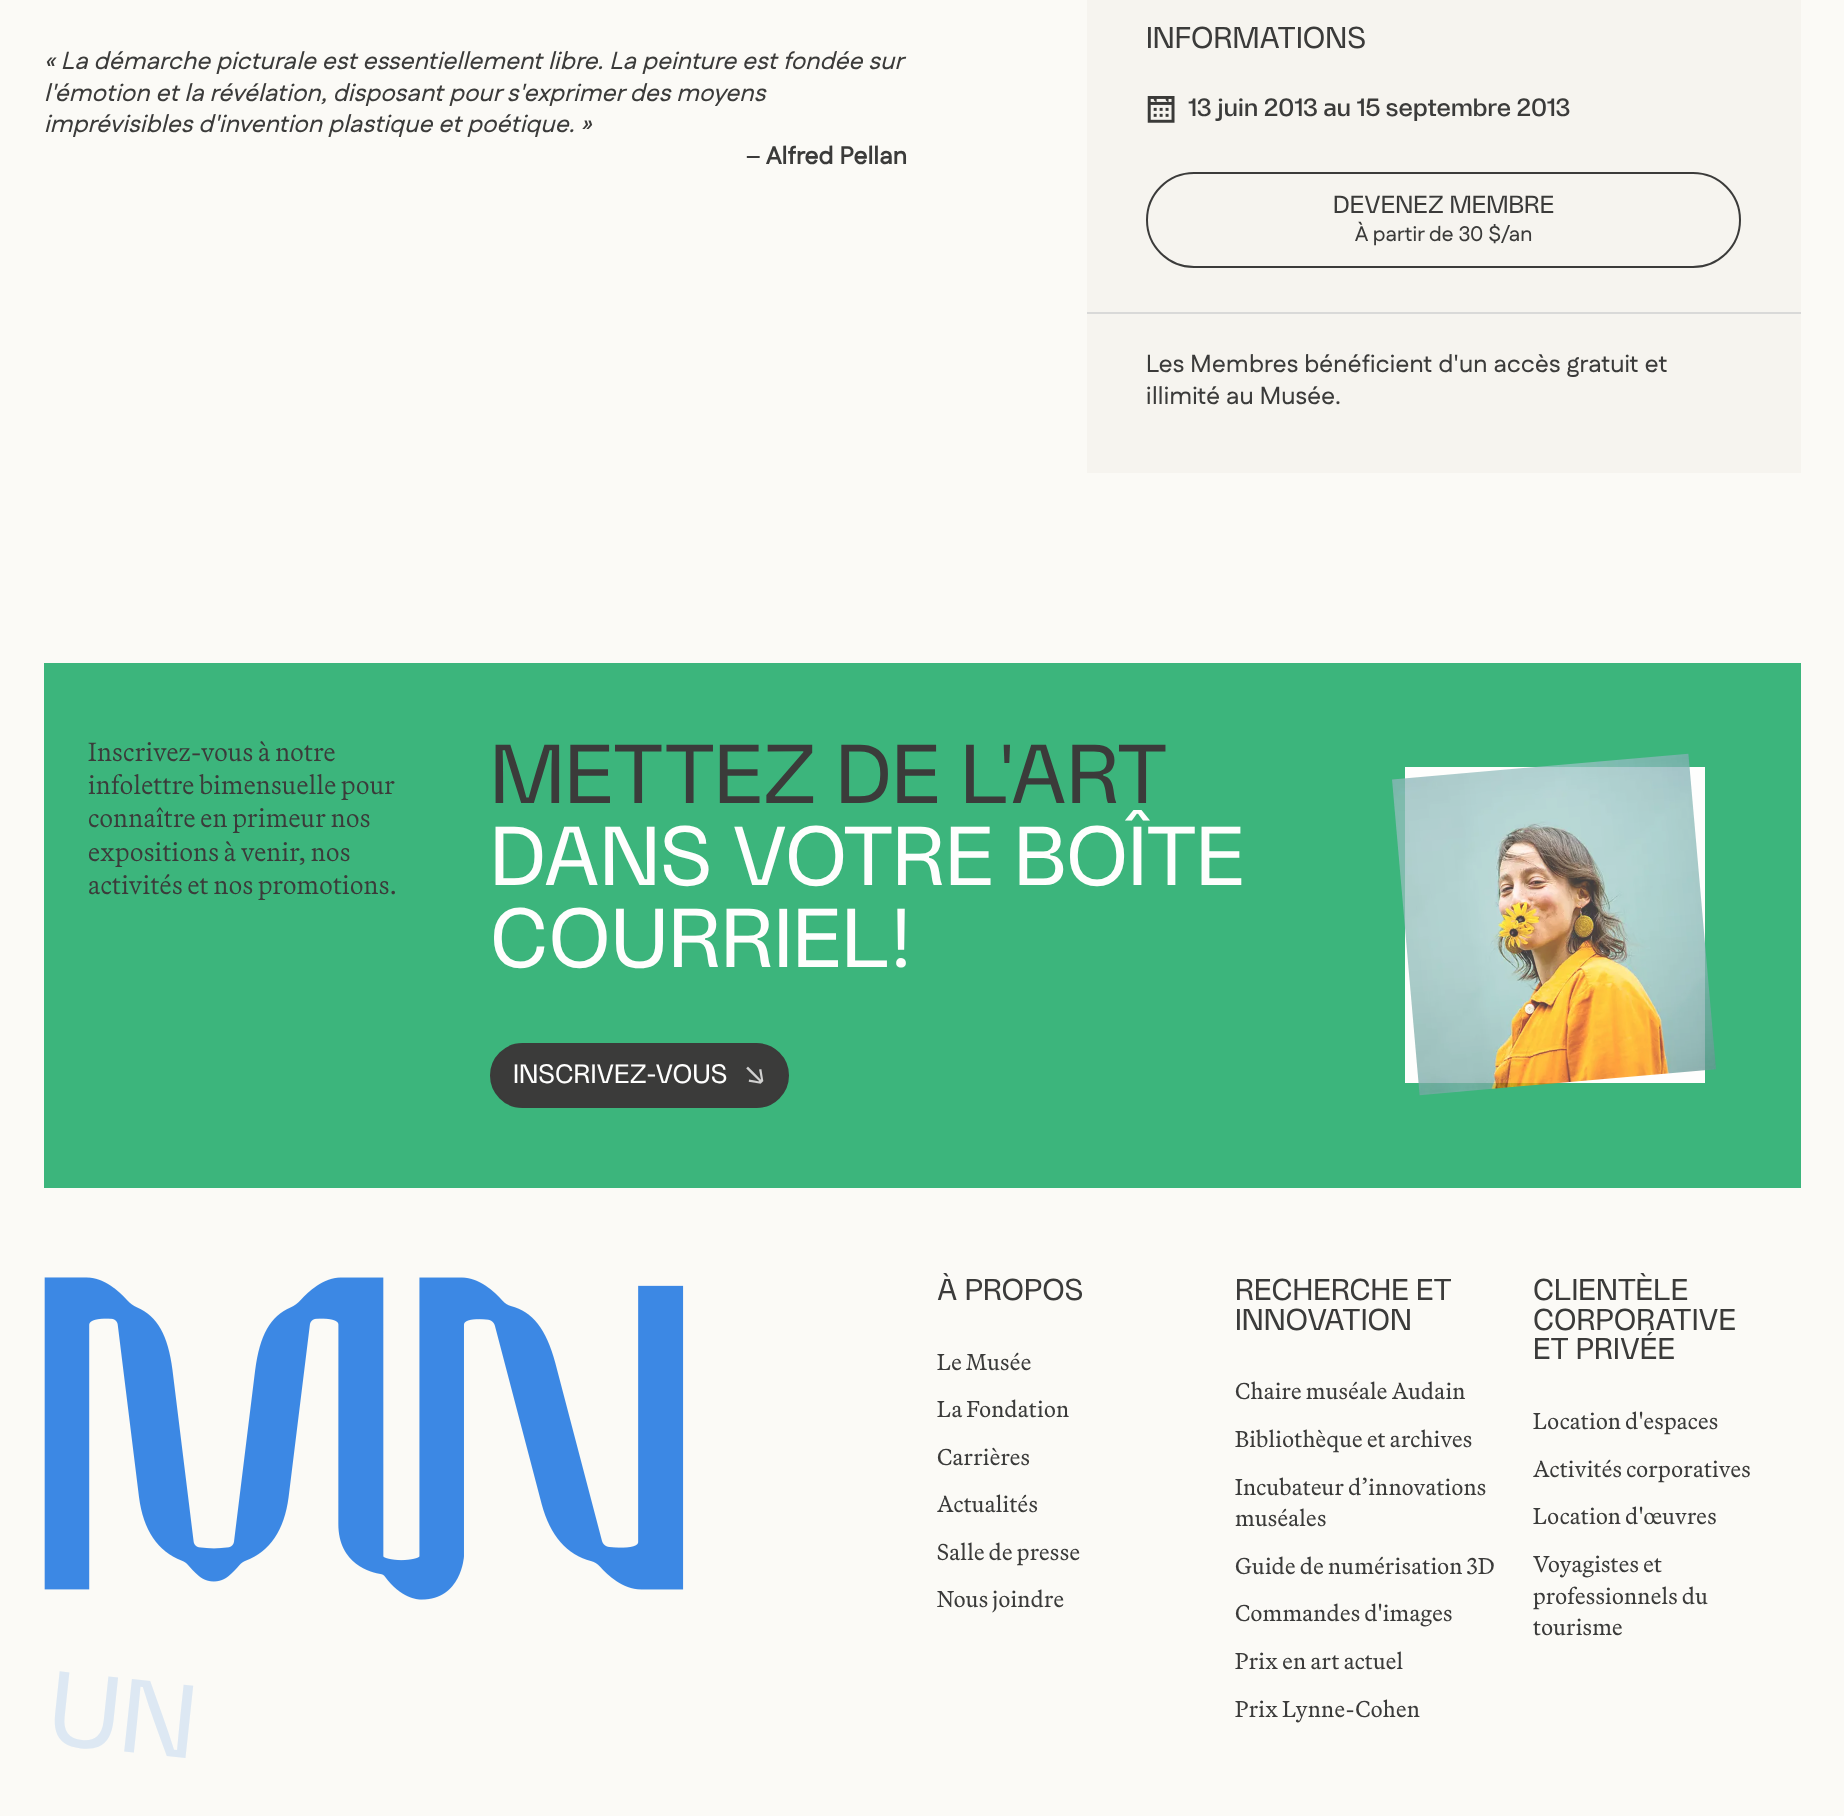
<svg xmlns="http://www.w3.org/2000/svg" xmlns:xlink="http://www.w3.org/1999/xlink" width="1844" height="1816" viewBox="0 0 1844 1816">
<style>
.cls-1{font:italic 500 24.5px Fustat;letter-spacing:0.25px;fill:#3b3b3a}
.cls-2{font:500 24.5px Fustat;letter-spacing:0.25px;fill:#3b3b3a}
.cls-3{font:bold 24.5px Fustat;letter-spacing:0.25px;fill:#3b3b3a}
.cls-4{font:29.75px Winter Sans;fill:#3b3b3a}
.cls-5{font:500 24.5px Winter Sans;fill:#3b3b3a}
.cls-6{font:24.5px Winter Sans;fill:#3b3b3a}
.cls-7{font:500 21px Fustat;fill:#3b3b3a}
.cls-8{font:300 26.25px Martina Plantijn;letter-spacing:0.25px;fill:#3b3b3a}
.cls-9{font:82.25px Winter Sans;fill:#3b3b3a}
.cls-10{font:82.25px Winter Sans;fill:#fefefd}
.cls-11{font:26.25px Winter Sans;fill:#fefefd}
.cls-12{font:103px Winter Sans;fill:#dde8f3}
.cls-13{font:22.75px Martina Plantijn;letter-spacing:0.25px;fill:#3b3b3a}
</style>
<rect width="100%" height="100%" fill="#fbfaf6"/>
<rect fill="#f6f4ef" x="1087" y="0" width="714" height="473"/>
<image xlink:href="image0.png" x="1147" y="96" width="28" height="27"/>
<rect fill="none" stroke="#3b3b3a" stroke-width="2" x="1147" y="173" width="593" height="94" rx="47"/>
<rect fill="#d9d9d8" x="1087" y="312" width="714" height="2"/>
<rect fill="#3cb57c" x="44" y="663" width="1757" height="525"/>
<rect fill="#3b3b3a" stroke="#3b3b3a" stroke-width="2" x="491" y="1044" width="297" height="63" rx="31.5"/>
<image xlink:href="image1.png" x="746" y="1066" width="18" height="18"/>
<rect fill="#fefefd" x="1405" y="767" width="300" height="316"/>
<image xlink:href="image2.png" x="1392" y="753" width="324" height="343"/>
<image xlink:href="image3.png" x="44" y="1277" width="640" height="323"/>
<text class="cls-1"><tspan x="44" y="69">« La démarche picturale est essentiellement libre. La peinture est fondée sur</tspan><tspan x="44" y="101">l'émotion et la révélation, disposant pour s'exprimer des moyens</tspan><tspan x="44" y="132">imprévisibles d'invention plastique et poétique. »</tspan></text>
<text class="cls-2" x="746" y="164">–</text>
<text class="cls-3" x="766" y="164">Alfred Pellan</text>
<text class="cls-4" x="1146" y="48">INFORMATIONS</text>
<text class="cls-5" x="1188" y="116">13 juin 2013 au 15 septembre 2013</text>
<text class="cls-6" x="1333" y="213">DEVENEZ MEMBRE</text>
<text class="cls-7" x="1355" y="241">À partir de 30 $/an</text>
<text class="cls-2"><tspan x="1146" y="372">Les Membres bénéficient d'un accès gratuit et</tspan><tspan x="1146" y="404">illimité au Musée.</tspan></text>
<text class="cls-8"><tspan x="88" y="761">Inscrivez-vous à notre</tspan><tspan x="88" y="794">infolettre bimensuelle pour</tspan><tspan x="88" y="827">connaître en primeur nos</tspan><tspan x="88" y="861">expositions à venir, nos</tspan><tspan x="88" y="894">activités et nos promotions.</tspan></text>
<text class="cls-9" x="490" y="803">METTEZ DE L'ART</text>
<text class="cls-10"><tspan x="490" y="885">DANS VOTRE BOÎTE</tspan><tspan x="490" y="967">COURRIEL!</tspan></text>
<text class="cls-11" x="513" y="1083">INSCRIVEZ-VOUS</text>
<text class="cls-12" x="45" y="1743" transform="rotate(6.1 45 1743)">UN</text>
<text class="cls-4" x="937" y="1300">À PROPOS</text>
<text class="cls-13" x="937" y="1370">Le Musée</text>
<text class="cls-13" x="937" y="1417">La Fondation</text>
<text class="cls-13" x="937" y="1465">Carrières</text>
<text class="cls-13" x="937" y="1512">Actualités</text>
<text class="cls-13" x="937" y="1560">Salle de presse</text>
<text class="cls-13" x="937" y="1607">Nous joindre</text>
<text class="cls-4"><tspan x="1235" y="1300">RECHERCHE ET</tspan><tspan x="1235" y="1330">INNOVATION</tspan></text>
<text class="cls-13" x="1235" y="1399">Chaire muséale Audain</text>
<text class="cls-13" x="1235" y="1447">Bibliothèque et archives</text>
<text class="cls-13"><tspan x="1235" y="1495">Incubateur d’innovations</tspan><tspan x="1235" y="1526">muséales</tspan></text>
<text class="cls-13" x="1235" y="1574">Guide de numérisation 3D</text>
<text class="cls-13" x="1235" y="1621">Commandes d'images</text>
<text class="cls-13" x="1235" y="1669">Prix en art actuel</text>
<text class="cls-13" x="1235" y="1717">Prix Lynne-Cohen</text>
<text class="cls-4"><tspan x="1533" y="1300">CLIENTÈLE</tspan><tspan x="1533" y="1330">CORPORATIVE</tspan><tspan x="1533" y="1359">ET PRIVÉE</tspan></text>
<text class="cls-13" x="1533" y="1429">Location d'espaces</text>
<text class="cls-13" x="1533" y="1477">Activités corporatives</text>
<text class="cls-13" x="1533" y="1524">Location d'œuvres</text>
<text class="cls-13"><tspan x="1533" y="1572">Voyagistes et</tspan><tspan x="1533" y="1604">professionnels du</tspan><tspan x="1533" y="1635">tourisme</tspan></text>
</svg>
